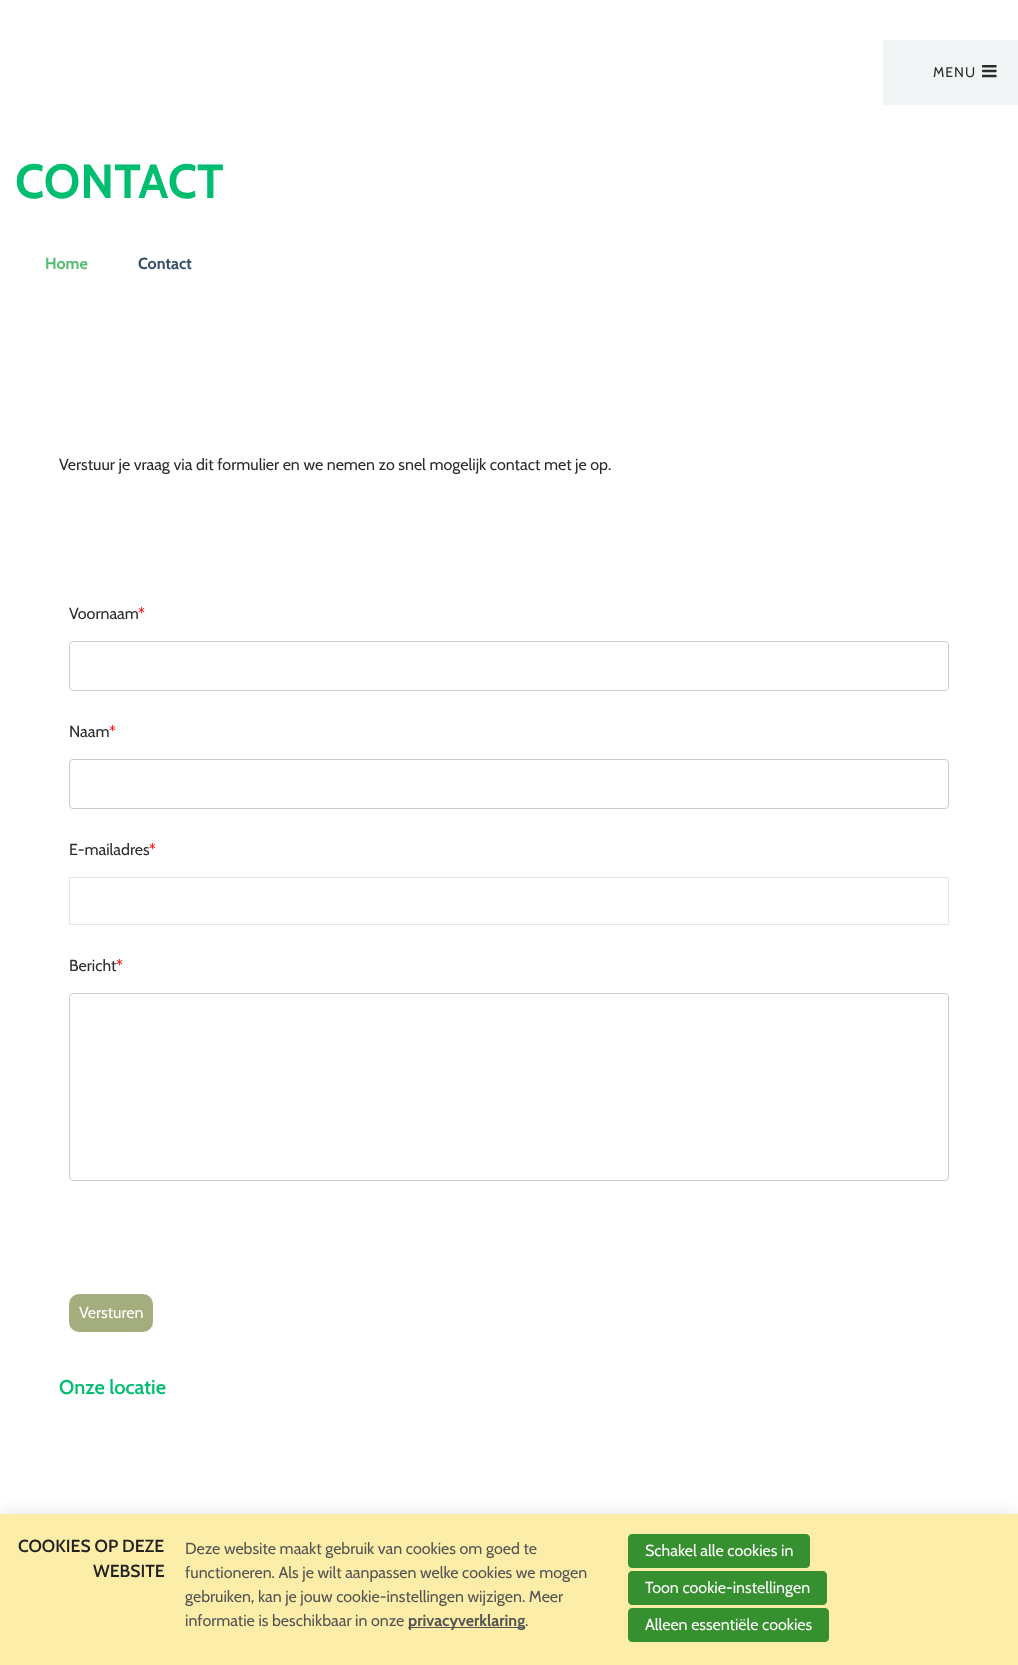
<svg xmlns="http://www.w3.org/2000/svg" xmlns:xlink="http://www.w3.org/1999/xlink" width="1018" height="1665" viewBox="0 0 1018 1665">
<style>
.cls-1{font:14px Cabin;letter-spacing:1px;fill:#2c2c2c}
.cls-2{font:17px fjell;letter-spacing:1px;fill:#2c2c2c}
.cls-3{font:bold 48px Cabin;fill:#00bd70}
.cls-4{font:bold 16px Cabin;fill:#52bd70}
.cls-5{font:bold 16px Cabin;fill:#334e69}
.cls-6{font:16px Cabin;fill:#2c2c2c}
.cls-7{font:16px Cabin;fill:#ff0000}
.cls-8{font:16px Cabin;fill:#ffffff}
.cls-9{font:600 20px Cabin;fill:#00bd70}
.cls-10{font:600 17.5px Cabin;fill:#222222}
.cls-11{font:16px Cabin;fill:#555555}
.cls-12{font:bold 16px Cabin;fill:#555555}
</style>
<rect width="100%" height="100%" fill="#ffffff"/>
<rect fill="#f2f5f6" x="883" y="40" width="135" height="65"/>
<rect fill="none" stroke="#cccccc" x="69.5" y="641.5" width="879" height="49" rx="3.5"/>
<rect fill="none" stroke="#cccccc" x="69.5" y="759.5" width="879" height="49" rx="3.5"/>
<rect fill="none" stroke="#e6e6e6" x="69.5" y="877.5" width="879" height="47"/>
<rect fill="none" stroke="#cccccc" x="69.5" y="993.5" width="879" height="187" rx="3.5"/>
<rect fill="#a4ad7e" x="69" y="1294" width="84" height="38" rx="10"/>
<rect fill="#000000" fill-opacity="0.2" filter="blur(10px)" x="0" y="1519" width="1018" height="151"/>
<rect fill="#fceea8" x="0" y="1514" width="1018" height="151"/>
<rect fill="#555555" x="408" y="1627" width="117" height="1"/>
<rect fill="#37902f" stroke="#37902f" x="628.5" y="1534.5" width="181" height="33" rx="3.5"/>
<rect fill="#37902f" stroke="#37902f" x="628.5" y="1571.5" width="198" height="33" rx="3.5"/>
<rect fill="#37902f" stroke="#37902f" x="628.5" y="1608.5" width="200" height="33" rx="3.5"/>
<text class="cls-1" x="933" y="77">MENU</text>
<text class="cls-2" x="982" y="77">☰</text>
<text class="cls-3" x="15" y="198">CONTACT</text>
<text class="cls-4" x="45" y="269">Home</text>
<text class="cls-5" x="138" y="269">Contact</text>
<text class="cls-6" x="59" y="470">Verstuur je vraag via dit formulier en we nemen zo snel mogelijk contact met je op.</text>
<text class="cls-6" x="69" y="619">Voornaam</text>
<text class="cls-7" x="138" y="619">*</text>
<text class="cls-6" x="69" y="737">Naam</text>
<text class="cls-7" x="109" y="737">*</text>
<text class="cls-6" x="69" y="855">E-mailadres</text>
<text class="cls-7" x="149" y="855">*</text>
<text class="cls-6" x="69" y="971">Bericht</text>
<text class="cls-7" x="116" y="971">*</text>
<text class="cls-8" x="79" y="1318">Versturen</text>
<text class="cls-9" x="59" y="1394">Onze locatie</text>
<text class="cls-10" x="18" y="1552">COOKIES OP DEZE</text>
<text class="cls-10" x="93" y="1577">WEBSITE</text>
<text class="cls-11"><tspan x="185" y="1554">Deze website maakt gebruik van cookies om goed te</tspan><tspan x="185" y="1578">functioneren. Als je wilt aanpassen welke cookies we mogen</tspan><tspan x="185" y="1602">gebruiken, kan je jouw cookie-instellingen wijzigen. Meer</tspan><tspan x="185" y="1626">informatie is beschikbaar in onze</tspan></text>
<text class="cls-12" x="408" y="1626">privacyverklaring</text>
<text class="cls-11" x="525" y="1626">.</text>
<text class="cls-8" x="645" y="1556">Schakel alle cookies in</text>
<text class="cls-8" x="645" y="1593">Toon cookie-instellingen</text>
<text class="cls-8" x="645" y="1630">Alleen essentiële cookies</text>
</svg>
